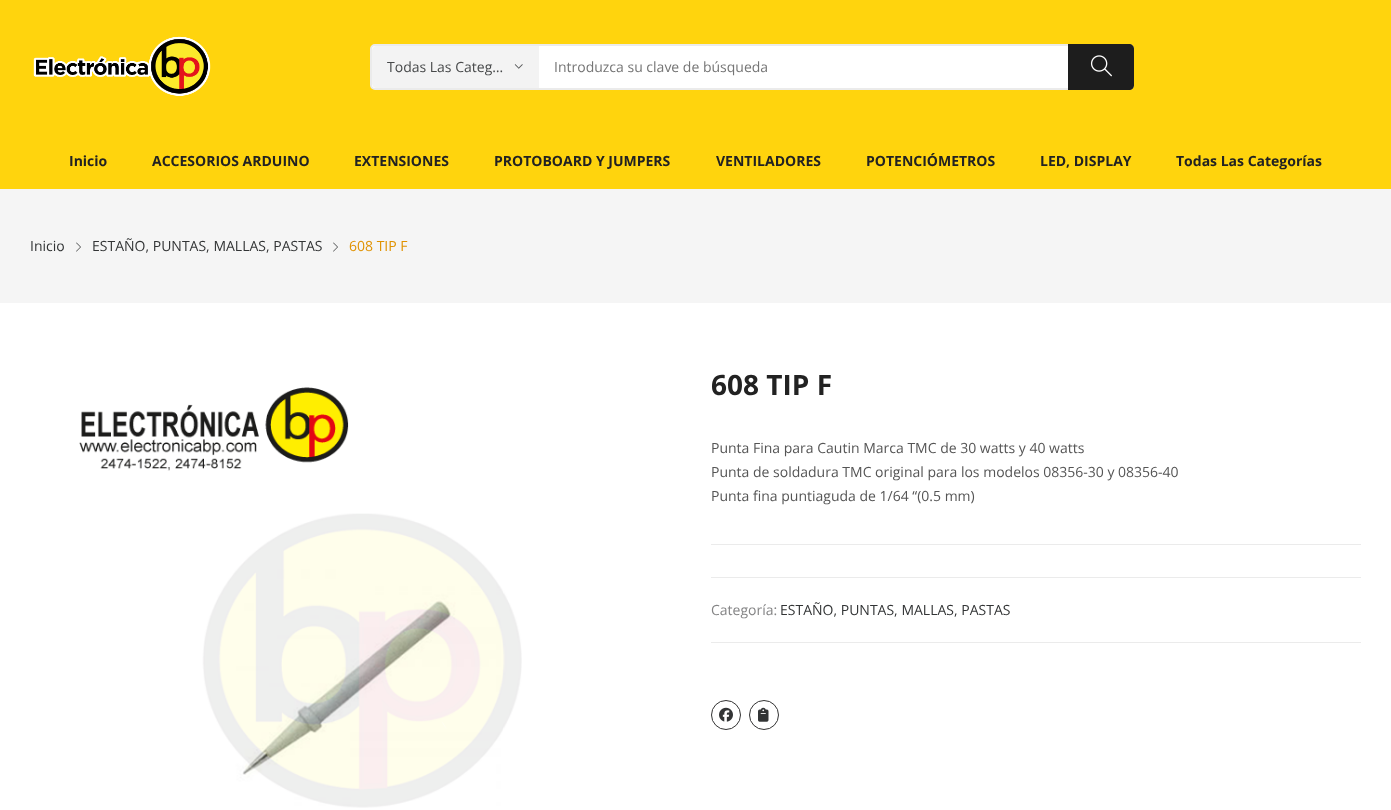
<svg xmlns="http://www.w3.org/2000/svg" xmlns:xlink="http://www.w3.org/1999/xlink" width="1391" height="810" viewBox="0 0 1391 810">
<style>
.cls-1{font:14px Open Sans;fill:#47494a}
.cls-2{font:14px Open Sans;fill:#757575}
.cls-3{font:bold 14px Open Sans;fill:#222222}
.cls-4{font:14px Open Sans;fill:#323435}
.cls-5{font:14px Open Sans;fill:#e09200}
.cls-6{font:bold 28px Open Sans;fill:#222222}
.cls-7{font:14px Open Sans;fill:#555555}
.cls-8{font:14px Open Sans;fill:#848485}
</style>
<rect width="100%" height="100%" fill="#ffffff"/>
<rect fill="#ffd40d" x="0" y="0" width="1391" height="189"/>
<image xlink:href="image0.png" x="33" y="36" width="178" height="60"/>
<rect fill="#ffffff" stroke="#ebebeb" stroke-width="2" x="371" y="45" width="762" height="44" rx="4"/>
<path fill="#f3f3f3" d="M377 46H539V88H377C374 88 372 86 372 83V51C372 48 374 46 377 46Z"/>
<image xlink:href="image1.png" x="514" y="64" width="9" height="5"/>
<path fill="#1d1d1d" d="M1068 44H1129C1132 44 1134 46 1134 49V85C1134 88 1132 90 1129 90H1068Z"/>
<image xlink:href="image2.png" x="1090" y="55" width="22" height="22"/>
<rect fill="#f5f5f5" x="0" y="189" width="1391" height="114"/>
<image xlink:href="image3.png" x="76" y="242" width="5" height="10"/>
<image xlink:href="image3.png" x="333" y="242" width="5" height="10"/>
<image xlink:href="image4.png" x="79" y="387" width="443" height="421"/>
<rect fill="#ebebeb" x="711" y="544" width="650" height="1"/>
<rect fill="#ebebeb" x="711" y="577" width="650" height="1"/>
<rect fill="#ebebeb" x="711" y="642" width="650" height="1"/>
<circle fill="none" stroke="#333333" cx="726" cy="715" r="14.5"/>
<image xlink:href="image5.png" x="719" y="707" width="14" height="15"/>
<circle fill="none" stroke="#333333" cx="764" cy="715" r="14.5"/>
<image xlink:href="image6.png" x="758" y="707" width="11" height="15"/>
<text class="cls-1" x="387" y="72">Todas Las Categ…</text>
<text class="cls-2" x="554" y="72">Introduzca su clave de búsqueda</text>
<text class="cls-3" x="69" y="166">Inicio</text>
<text class="cls-3" x="152" y="166">ACCESORIOS ARDUINO</text>
<text class="cls-3" x="354" y="166">EXTENSIONES</text>
<text class="cls-3" x="494" y="166">PROTOBOARD Y JUMPERS</text>
<text class="cls-3" x="716" y="166">VENTILADORES</text>
<text class="cls-3" x="866" y="166">POTENCIÓMETROS</text>
<text class="cls-3" x="1040" y="166">LED, DISPLAY</text>
<text class="cls-3" x="1176" y="166">Todas Las Categorías</text>
<text class="cls-4" x="30" y="251">Inicio</text>
<text class="cls-4" x="92" y="251">ESTAÑO, PUNTAS, MALLAS, PASTAS</text>
<text class="cls-5" x="349" y="251">608 TIP F</text>
<text class="cls-6" x="711" y="395">608 TIP F</text>
<text class="cls-7"><tspan x="711" y="453">Punta Fina para Cautin Marca TMC de 30 watts y 40 watts</tspan><tspan x="711" y="477">Punta de soldadura TMC original para los modelos 08356-30 y 08356-40</tspan><tspan x="711" y="501">Punta fina puntiaguda de 1/64 “(0.5 mm)</tspan></text>
<text class="cls-8" x="711" y="615">Categoría:</text>
<text class="cls-4" x="780" y="615">ESTAÑO, PUNTAS, MALLAS, PASTAS</text>
</svg>
